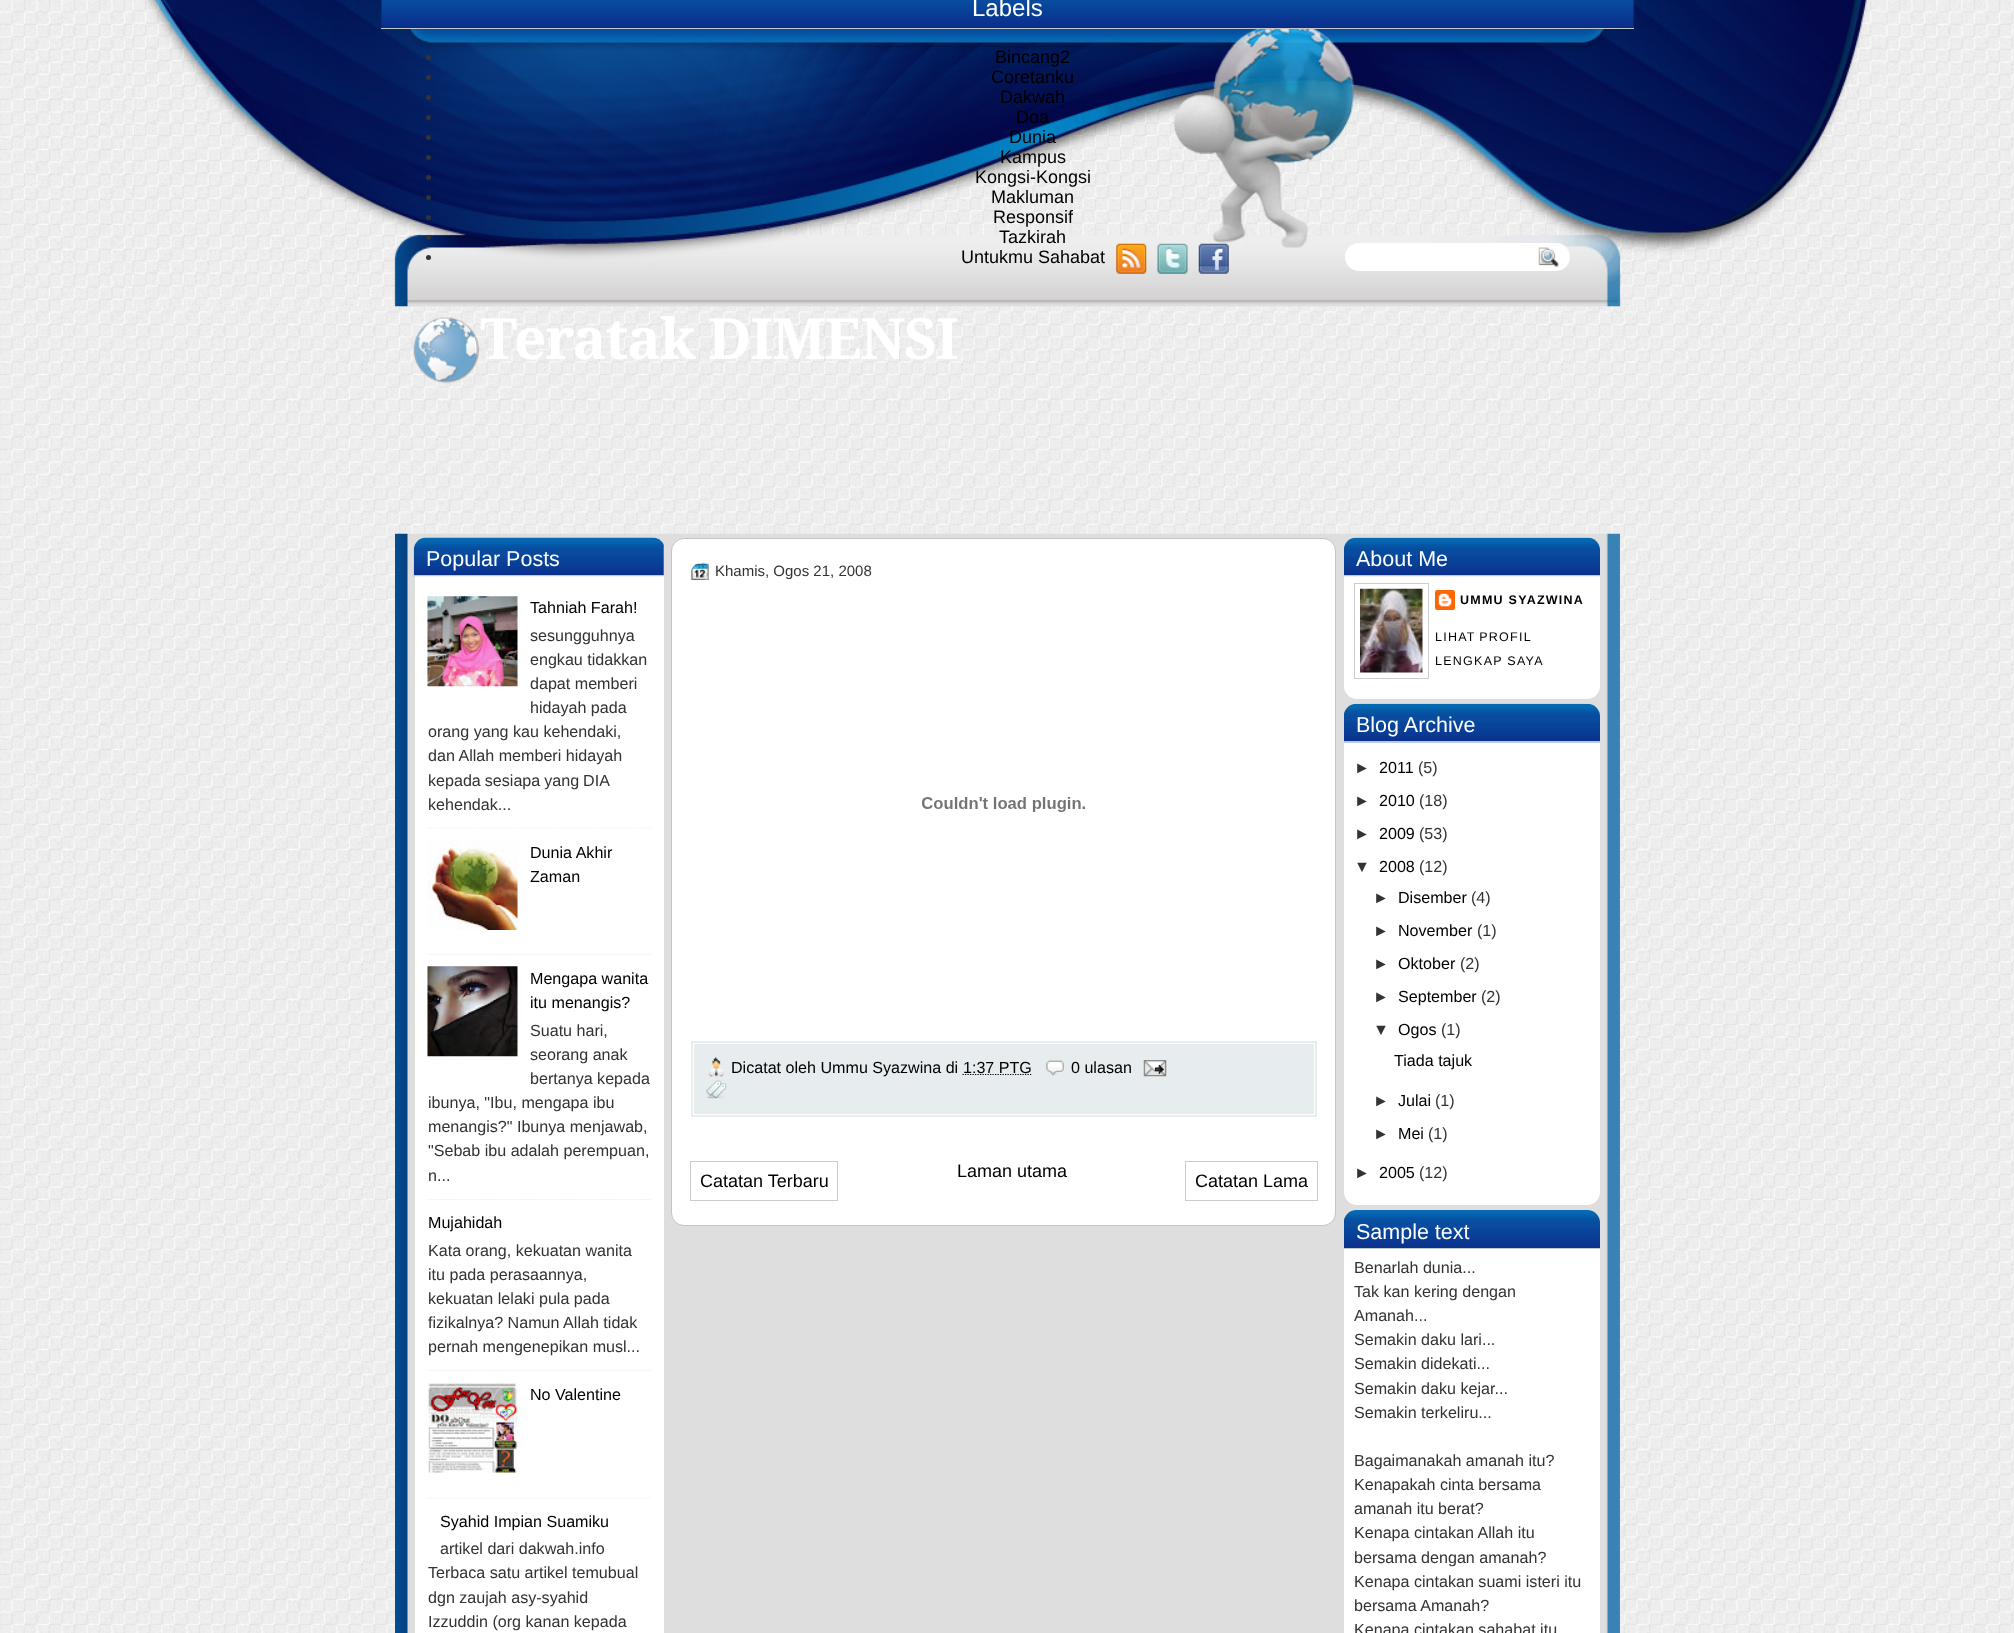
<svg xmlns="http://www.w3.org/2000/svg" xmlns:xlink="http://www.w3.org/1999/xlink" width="2014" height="1633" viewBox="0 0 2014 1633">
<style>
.cls-1{font:24px Liberation Sans;fill:#ffffff}
.cls-2{font:18px Liberation Sans;fill:#000000}
.cls-3{font:bold 56.75px Droid Serif;letter-spacing:-1.25px;fill:#ffffff}
.cls-4{font:21.5px Liberation Sans;fill:#ffffff}
.cls-5{font:16.1px Liberation Sans;fill:#000000}
.cls-6{font:16.1px Liberation Sans;fill:#333333}
.cls-7{font:15px Liberation Sans;fill:#333333}
.cls-8{font:bold 12.5px Liberation Sans;letter-spacing:1.25px;fill:#000000}
.cls-9{font:12.5px Liberation Sans;letter-spacing:1.25px;fill:#000000}
</style>
<rect width="100%" height="100%" fill="#ffffff"/>
<image xlink:href="image0.png" x="0" y="0" width="2014" height="1633"/>
<image xlink:href="image1.png" x="132" y="0" width="1751" height="307"/>
<image xlink:href="image2.png" x="381" y="0" width="1253" height="28"/>
<rect fill="#bfcac7" x="381" y="28" width="1253" height="1"/>
<circle fill="#333333" cx="428.5" cy="57.5" r="2.5"/>
<circle fill="#333333" cx="428.5" cy="77.5" r="2.5"/>
<circle fill="#333333" cx="428.5" cy="97.5" r="2.5"/>
<circle fill="#333333" cx="428.5" cy="117.5" r="2.5"/>
<circle fill="#333333" cx="428.5" cy="137.5" r="2.5"/>
<circle fill="#333333" cx="428.5" cy="157.5" r="2.5"/>
<circle fill="#333333" cx="428.5" cy="177.5" r="2.5"/>
<circle fill="#333333" cx="428.5" cy="197.5" r="2.5"/>
<circle fill="#333333" cx="428.5" cy="217.5" r="2.5"/>
<circle fill="#333333" cx="428.5" cy="237.5" r="2.5"/>
<circle fill="#333333" cx="428.5" cy="257.5" r="2.5"/>
<image xlink:href="image3.png" x="1116" y="243" width="31" height="31"/>
<image xlink:href="image4.png" x="1157" y="243" width="31" height="31"/>
<image xlink:href="image5.png" x="1198" y="243" width="31" height="31"/>
<rect fill="#ffffff" x="1345" y="243" width="225" height="28" rx="14"/>
<image xlink:href="image6.png" x="1538" y="247" width="21" height="21"/>
<image xlink:href="image7.png" x="413" y="317" width="67" height="67"/>
<image xlink:href="image8.png" x="395" y="533" width="1225" height="1100"/>
<rect fill="#ffffff" x="415" y="539" width="249" height="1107" rx="13"/>
<image xlink:href="image9.png" x="413" y="537" width="251" height="40"/>
<rect fill="#bfcac7" x="414" y="575" width="250" height="1"/>
<path fill="none" stroke="#eeeeee" stroke-width="1.2" stroke-dasharray="1.25 1.25" d="M427.5 828H651"/>
<image xlink:href="image10.png" x="427" y="596" width="91" height="91"/>
<path fill="none" stroke="#eeeeee" stroke-width="1.2" stroke-dasharray="1.25 1.25" d="M427.5 954.5H651"/>
<image xlink:href="image11.png" x="427" y="840" width="91" height="90"/>
<path fill="none" stroke="#eeeeee" stroke-width="1.2" stroke-dasharray="1.25 1.25" d="M427.5 1199.5H651"/>
<image xlink:href="image12.png" x="427" y="966" width="91" height="91"/>
<path fill="none" stroke="#eeeeee" stroke-width="1.2" stroke-dasharray="1.25 1.25" d="M427.5 1370.5H651"/>
<path fill="none" stroke="#eeeeee" stroke-width="1.2" stroke-dasharray="1.25 1.25" d="M427.5 1498H651"/>
<image xlink:href="image13.png" x="427" y="1382" width="91" height="91"/>
<rect fill="#ffffff" stroke="#c6c4c4" x="671.5" y="538.5" width="664" height="687" rx="12.5"/>
<image xlink:href="image14.png" x="691" y="562" width="18" height="18"/>
<image xlink:href="image15.png" x="922" y="797" width="163" height="15"/>
<rect fill="#e7ecee" x="691" y="1041" width="626" height="76"/>
<rect fill="none" stroke="#ffffff" x="693.5" y="1043.5" width="621" height="71"/>
<image xlink:href="image16.png" x="708" y="1057" width="16" height="20"/>
<path fill="none" stroke="#000000" stroke-width="1.2" stroke-dasharray="1.25 1.25" d="M962.5 1074.5H1031.5"/>
<image xlink:href="image17.png" x="1046" y="1060" width="18" height="16"/>
<image xlink:href="image18.png" x="1143" y="1060" width="24" height="17"/>
<image xlink:href="image19.png" x="706" y="1080" width="21" height="19"/>
<rect fill="none" stroke="#cccccc" x="690.5" y="1161.5" width="147" height="39"/>
<rect fill="none" stroke="#cccccc" x="1185.5" y="1161.5" width="132" height="39"/>
<rect fill="#ffffff" x="1344" y="538" width="256" height="161" rx="13"/>
<image xlink:href="image20.png" x="1344" y="537" width="256" height="40"/>
<rect fill="#bfcac7" x="1344" y="575" width="256" height="1"/>
<rect fill="none" stroke="#cccccc" x="1354.5" y="583.5" width="74" height="95"/>
<image xlink:href="image21.png" x="1360" y="588" width="63" height="85"/>
<image xlink:href="image22.png" x="1435" y="590" width="20" height="20"/>
<rect fill="#ffffff" x="1344" y="704" width="256" height="501" rx="13"/>
<image xlink:href="image23.png" x="1344" y="703" width="256" height="40"/>
<rect fill="#bfcac7" x="1344" y="741" width="256" height="1"/>
<rect fill="#ffffff" x="1344" y="1210" width="256" height="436" rx="13"/>
<image xlink:href="image24.png" x="1344" y="1210" width="256" height="38"/>
<rect fill="#bfcac7" x="1344" y="1248" width="256" height="1"/>
<text class="cls-1" x="972" y="16">Labels</text>
<text class="cls-2" x="995" y="63">Bincang2</text>
<text class="cls-2" x="991" y="83">Coretanku</text>
<text class="cls-2" x="1000" y="103">Dakwah</text>
<text class="cls-2" x="1016" y="123">Doa</text>
<text class="cls-2" x="1009" y="143">Dunia</text>
<text class="cls-2" x="1000" y="163">Kampus</text>
<text class="cls-2" x="975" y="183">Kongsi-Kongsi</text>
<text class="cls-2" x="991" y="203">Makluman</text>
<text class="cls-2" x="993" y="223">Responsif</text>
<text class="cls-2" x="999" y="243">Tazkirah</text>
<text class="cls-2" x="961" y="263">Untukmu Sahabat</text>
<text class="cls-3" x="480" y="359">Teratak DIMENSI</text>
<text class="cls-4" x="426" y="566">Popular Posts</text>
<text class="cls-5" x="530" y="613">Tahniah Farah!</text>
<text class="cls-6"><tspan x="530" y="641">sesungguhnya</tspan><tspan x="530" y="665">engkau tidakkan</tspan><tspan x="530" y="689">dapat memberi</tspan><tspan x="530" y="713">hidayah pada</tspan></text>
<text class="cls-6"><tspan x="428" y="737">orang yang kau kehendaki,</tspan><tspan x="428" y="761">dan Allah memberi hidayah</tspan><tspan x="428" y="786" word-spacing="-0.5">kepada sesiapa yang DIA</tspan><tspan x="428" y="810">kehendak...</tspan></text>
<text class="cls-5"><tspan x="530" y="858">Dunia Akhir</tspan><tspan x="530" y="882">Zaman</tspan></text>
<text class="cls-5"><tspan x="530" y="984">Mengapa wanita</tspan><tspan x="530" y="1008">itu menangis?</tspan></text>
<text class="cls-6"><tspan x="530" y="1036">Suatu hari,</tspan><tspan x="530" y="1060">seorang anak</tspan><tspan x="530" y="1084">bertanya kepada</tspan></text>
<text class="cls-6"><tspan x="428" y="1108">ibunya, "Ibu, mengapa ibu</tspan><tspan x="428" y="1132">menangis?" Ibunya menjawab,</tspan><tspan x="428" y="1156">"Sebab ibu adalah perempuan,</tspan><tspan x="428" y="1181">n...</tspan></text>
<text class="cls-5" x="428" y="1228">Mujahidah</text>
<text class="cls-6"><tspan x="428" y="1256">Kata orang, kekuatan wanita</tspan><tspan x="428" y="1280">itu pada perasaannya,</tspan><tspan x="428" y="1304">kekuatan lelaki pula pada</tspan><tspan x="428" y="1328">fizikalnya? Namun Allah tidak</tspan><tspan x="428" y="1352">pernah mengenepikan musl...</tspan></text>
<text class="cls-5" x="530" y="1400">No Valentine</text>
<text class="cls-5" x="440" y="1527">Syahid Impian Suamiku</text>
<text class="cls-6" x="440" y="1554">artikel dari dakwah.info</text>
<text class="cls-6"><tspan x="428" y="1578">Terbaca satu artikel temubual</tspan><tspan x="428" y="1603">dgn zaujah asy-syahid</tspan><tspan x="428" y="1627">Izzuddin (org kanan kepada</tspan></text>
<text class="cls-7" x="715" y="576">Khamis, Ogos 21, 2008</text>
<text class="cls-5" x="731" y="1073">Dicatat oleh Ummu Syazwina di</text>
<text class="cls-5" x="963" y="1073">1:37 PTG</text>
<text class="cls-5" x="1071" y="1073">0 ulasan</text>
<text class="cls-2" x="957" y="1177">Laman utama</text>
<text class="cls-2" x="700" y="1187">Catatan Terbaru</text>
<text class="cls-2" x="1195" y="1187">Catatan Lama</text>
<text class="cls-4" x="1356" y="566">About Me</text>
<text class="cls-8" x="1460" y="604">UMMU SYAZWINA</text>
<text class="cls-9"><tspan x="1435" y="641" word-spacing="-1">LIHAT PROFIL</tspan><tspan x="1435" y="665">LENGKAP SAYA</tspan></text>
<text class="cls-4" x="1356" y="732">Blog Archive</text>
<text class="cls-6" x="1354" y="773">►</text>
<text class="cls-5" x="1379" y="773">2011</text>
<text class="cls-6" x="1418" y="773">(5)</text>
<text class="cls-6" x="1354" y="806">►</text>
<text class="cls-5" x="1379" y="806">2010</text>
<text class="cls-6" x="1419" y="806">(18)</text>
<text class="cls-6" x="1354" y="839">►</text>
<text class="cls-5" x="1379" y="839">2009</text>
<text class="cls-6" x="1419" y="839">(53)</text>
<text class="cls-6" x="1354" y="872">▼</text>
<text class="cls-5" x="1379" y="872">2008</text>
<text class="cls-6" x="1419" y="872">(12)</text>
<text class="cls-6" x="1373" y="903">►</text>
<text class="cls-5" x="1398" y="903">Disember</text>
<text class="cls-6" x="1471" y="903">(4)</text>
<text class="cls-6" x="1373" y="936">►</text>
<text class="cls-5" x="1398" y="936">November</text>
<text class="cls-6" x="1477" y="936">(1)</text>
<text class="cls-6" x="1373" y="969">►</text>
<text class="cls-5" x="1398" y="969">Oktober</text>
<text class="cls-6" x="1460" y="969">(2)</text>
<text class="cls-6" x="1373" y="1002">►</text>
<text class="cls-5" x="1398" y="1002">September</text>
<text class="cls-6" x="1481" y="1002">(2)</text>
<text class="cls-6" x="1373" y="1035">▼</text>
<text class="cls-5" x="1398" y="1035">Ogos</text>
<text class="cls-6" x="1441" y="1035">(1)</text>
<text class="cls-5" x="1394" y="1066">Tiada tajuk</text>
<text class="cls-6" x="1373" y="1106">►</text>
<text class="cls-5" x="1398" y="1106">Julai</text>
<text class="cls-6" x="1435" y="1106">(1)</text>
<text class="cls-6" x="1373" y="1139">►</text>
<text class="cls-5" x="1398" y="1139">Mei</text>
<text class="cls-6" x="1428" y="1139">(1)</text>
<text class="cls-6" x="1354" y="1178">►</text>
<text class="cls-5" x="1379" y="1178">2005</text>
<text class="cls-6" x="1419" y="1178">(12)</text>
<text class="cls-4" x="1356" y="1239">Sample text</text>
<text class="cls-6"><tspan x="1354" y="1273">Benarlah dunia...</tspan><tspan x="1354" y="1297">Tak kan kering dengan</tspan><tspan x="1354" y="1321">Amanah...</tspan><tspan x="1354" y="1345">Semakin daku lari...</tspan><tspan x="1354" y="1369">Semakin didekati...</tspan><tspan x="1354" y="1394">Semakin daku kejar...</tspan><tspan x="1354" y="1418">Semakin terkeliru...</tspan></text>
<text class="cls-6"><tspan x="1354" y="1466">Bagaimanakah amanah itu?</tspan><tspan x="1354" y="1490">Kenapakah cinta bersama</tspan><tspan x="1354" y="1514">amanah itu berat?</tspan><tspan x="1354" y="1538">Kenapa cintakan Allah itu</tspan><tspan x="1354" y="1563">bersama dengan amanah?</tspan><tspan x="1354" y="1587">Kenapa cintakan suami isteri itu</tspan><tspan x="1354" y="1611">bersama Amanah?</tspan><tspan x="1354" y="1635">Kenapa cintakan sahabat itu</tspan></text>
</svg>
